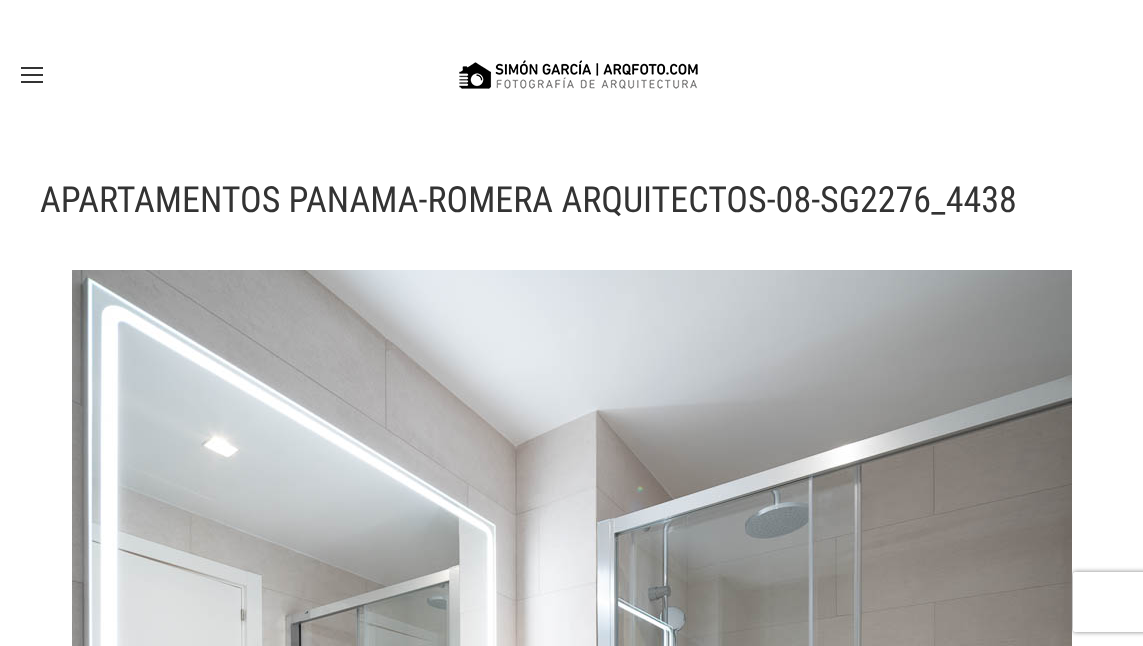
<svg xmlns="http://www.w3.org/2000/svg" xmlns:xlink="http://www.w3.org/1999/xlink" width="1143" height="646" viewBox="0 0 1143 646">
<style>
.cls-1{font:36px Roboto Condensed;fill:#333333}
</style>
<defs>
<clipPath id="clip1"><path d="M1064 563H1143V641H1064ZM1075 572H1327C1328 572 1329 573 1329 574V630C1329 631 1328 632 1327 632H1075C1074 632 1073 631 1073 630V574C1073 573 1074 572 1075 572Z" clip-rule="evenodd"/></clipPath>
</defs>
<rect width="100%" height="100%" fill="#ffffff"/>
<rect fill="#333333" x="21" y="67" width="22" height="2"/>
<rect fill="#333333" x="21" y="74" width="22" height="2"/>
<rect fill="#333333" x="21" y="81" width="22" height="2"/>
<image xlink:href="image0.png" x="459" y="60" width="239" height="29"/>
<image xlink:href="image1.png" x="72" y="270" width="1000" height="376"/>
<g clip-path="url(#clip1)">
<rect fill="#808080" filter="blur(2.5px)" x="1073" y="572" width="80" height="60" rx="2"/>
</g>
<text class="cls-1" x="40" y="212">APARTAMENTOS PANAMA-ROMERA ARQUITECTOS-08-SG2276_4438</text>
</svg>
